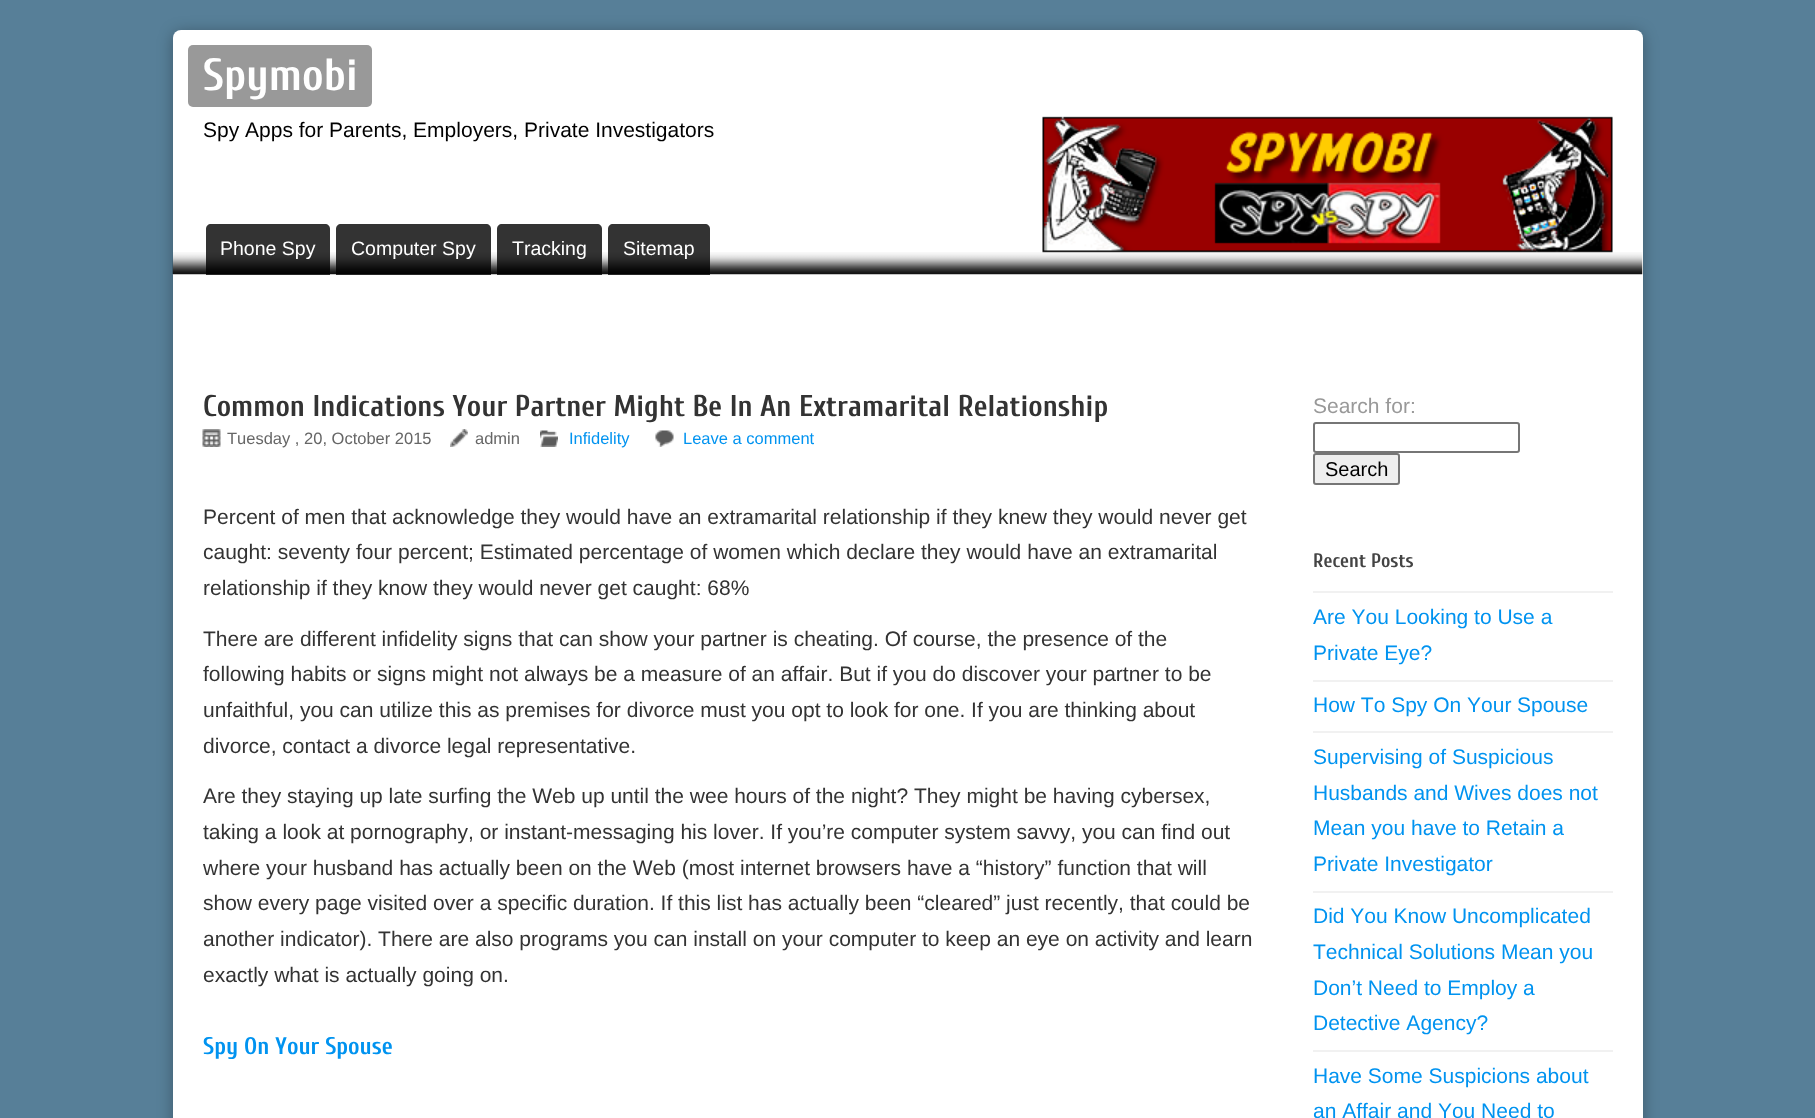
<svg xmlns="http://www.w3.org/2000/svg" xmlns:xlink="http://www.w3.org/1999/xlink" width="1815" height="1118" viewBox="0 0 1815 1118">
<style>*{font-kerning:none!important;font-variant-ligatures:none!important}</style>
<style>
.cls-1{font:bold 45px Cuprum;fill:#ffffff}
.cls-2{font:21px Liberation Sans;fill:#000000}
.cls-3{font:19.5px Liberation Sans;fill:#ffffff}
.cls-4{font:bold 30px Cuprum;fill:#333333}
.cls-5{font:16.5px Liberation Sans;fill:#666666}
.cls-6{font:16.5px Liberation Sans;fill:#0093f0}
.cls-7{font:21px Liberation Sans;fill:#333333}
.cls-8{font:bold 24px Cuprum;fill:#0093f0}
.cls-9{font:21px Liberation Sans;fill:#999999}
.cls-10{font:20px Liberation Sans;fill:#000000}
.cls-11{font:bold 19.5px Cuprum;fill:#444444}
.cls-12{font:21px Liberation Sans;fill:#0093f0}
</style>
<rect width="100%" height="100%" fill="#577f98"/>
<rect fill="#000000" fill-opacity="0.3" filter="blur(7.5px)" x="173" y="32" width="1470" height="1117" rx="8"/>
<rect fill="#ffffff" x="173" y="30" width="1470" height="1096" rx="8"/>
<rect fill="#999999" x="188" y="45" width="184" height="62" rx="5"/>
<image xlink:href="image1.png" x="1042" y="116" width="571" height="137"/>
<image xlink:href="image0.png" x="172" y="252" width="1471" height="23"/>
<path fill="#000000" fill-opacity="0.8" d="M211 224H325C328 224 330 226 330 229V275H206V229C206 226 208 224 211 224Z"/>
<path fill="#000000" fill-opacity="0.8" d="M341 224H486C489 224 491 226 491 229V275H336V229C336 226 338 224 341 224Z"/>
<path fill="#000000" fill-opacity="0.8" d="M502 224H597C600 224 602 226 602 229V275H497V229C497 226 499 224 502 224Z"/>
<path fill="#000000" fill-opacity="0.8" d="M613 224H705C708 224 710 226 710 229V275H608V229C608 226 610 224 613 224Z"/>
<image xlink:href="image2.png" x="202" y="429" width="19" height="18"/>
<image xlink:href="image3.png" x="450" y="429" width="18" height="18"/>
<image xlink:href="image4.png" x="540" y="430" width="18" height="17"/>
<image xlink:href="image5.png" x="655" y="430" width="19" height="17"/>
<rect fill="none" stroke="#767676" stroke-width="2" x="1314" y="423" width="205" height="29" rx="2"/>
<rect fill="#efefef" stroke="#767676" stroke-width="2" x="1314" y="454" width="85" height="30" rx="2"/>
<rect fill="#f1f1f1" x="1313" y="591" width="300" height="2"/>
<rect fill="#f1f1f1" x="1313" y="680" width="300" height="2"/>
<rect fill="#f1f1f1" x="1313" y="731" width="300" height="2"/>
<rect fill="#f1f1f1" x="1313" y="891" width="300" height="2"/>
<rect fill="#f1f1f1" x="1313" y="1050" width="300" height="2"/>
<text class="cls-1" x="203" y="90">Spymobi</text>
<text class="cls-2" x="203" y="137">Spy Apps for Parents, Employers, Private Investigators</text>
<text class="cls-3" x="220" y="255">Phone Spy</text>
<text class="cls-3" x="351" y="255">Computer Spy</text>
<text class="cls-3" x="512" y="255">Tracking</text>
<text class="cls-3" x="623" y="255">Sitemap</text>
<text class="cls-4" x="203" y="416">Common Indications Your Partner Might Be In An Extramarital Relationship</text>
<text class="cls-5" x="227" y="444">Tuesday , 20, October 2015</text>
<text class="cls-5" x="475" y="444">admin</text>
<text class="cls-6" x="569" y="444">Infidelity</text>
<text class="cls-6" x="683" y="444">Leave a comment</text>
<text class="cls-7"><tspan x="203" y="524">Percent of men that acknowledge they would have an extramarital relationship if they knew they would never get</tspan><tspan x="203" y="559">caught: seventy four percent; Estimated percentage of women which declare they would have an extramarital</tspan><tspan x="203" y="595">relationship if they know they would never get caught: 68%</tspan></text>
<text class="cls-7"><tspan x="203" y="646">There are different infidelity signs that can show your partner is cheating. Of course, the presence of the</tspan><tspan x="203" y="681">following habits or signs might not always be a measure of an affair. But if you do discover your partner to be</tspan><tspan x="203" y="717">unfaithful, you can utilize this as premises for divorce must you opt to look for one. If you are thinking about</tspan><tspan x="203" y="753">divorce, contact a divorce legal representative.</tspan></text>
<text class="cls-7"><tspan x="203" y="803">Are they staying up late surfing the Web up until the wee hours of the night? They might be having cybersex,</tspan><tspan x="203" y="839">taking a look at pornography, or instant-messaging his lover. If you’re computer system savvy, you can find out</tspan><tspan x="203" y="875">where your husband has actually been on the Web (most internet browsers have a “history” function that will</tspan><tspan x="203" y="910">show every page visited over a specific duration. If this list has actually been “cleared” just recently, that could be</tspan><tspan x="203" y="946">another indicator). There are also programs you can install on your computer to keep an eye on activity and learn</tspan><tspan x="203" y="982">exactly what is actually going on.</tspan></text>
<text class="cls-8" x="203" y="1054">Spy On Your Spouse</text>
<text class="cls-9" x="1313" y="413">Search for:</text>
<text class="cls-10" x="1325" y="476">Search</text>
<text class="cls-11" x="1313" y="567">Recent Posts</text>
<text class="cls-12"><tspan x="1313" y="624">Are You Looking to Use a</tspan><tspan x="1313" y="660">Private Eye?</tspan></text>
<text class="cls-12" x="1313" y="712">How To Spy On Your</text>
<text class="cls-12" x="1517" y="712">Spouse</text>
<text class="cls-12"><tspan x="1313" y="764">Supervising of Suspicious</tspan><tspan x="1313" y="800">Husbands and Wives does not</tspan><tspan x="1313" y="835">Mean you have to Retain a</tspan><tspan x="1313" y="871">Private Investigator</tspan></text>
<text class="cls-12"><tspan x="1313" y="923">Did You Know Uncomplicated</tspan><tspan x="1313" y="959">Technical Solutions Mean you</tspan><tspan x="1313" y="995">Don’t Need to Employ a</tspan><tspan x="1313" y="1030">Detective Agency?</tspan></text>
<text class="cls-12"><tspan x="1313" y="1083">Have Some Suspicions about</tspan><tspan x="1313" y="1118">an Affair and You Need to</tspan></text>
</svg>
